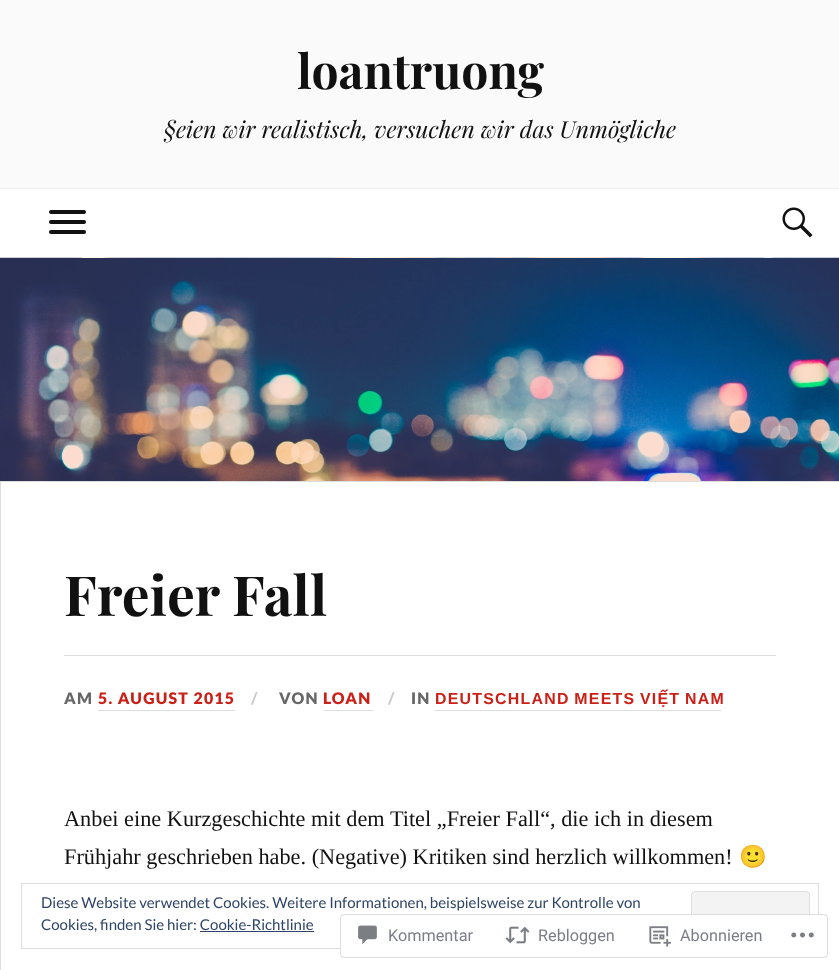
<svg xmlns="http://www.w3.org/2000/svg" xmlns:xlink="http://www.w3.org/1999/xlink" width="839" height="970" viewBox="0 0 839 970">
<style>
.cls-1{font:bold 48px Playfair Display;fill:#111111}
.cls-2{font:italic 23.4px Playfair Display;fill:#111111}
.cls-3{font:bold 55.25px Playfair Display;fill:#111111}
.cls-4{font:900 15.9px Lato;letter-spacing:1.25px;fill:#666666}
.cls-5{font:900 15.9px Lato;letter-spacing:1.25px;fill:#ca2017}
.cls-6{font:900 15.9px Lato;letter-spacing:1.25px;fill:#cccccc}
.cls-7{font:bold 15.9px Liberation Sans;letter-spacing:1.25px;fill:#ca2017}
.cls-8{font:22.3px Liberation Serif;fill:#111111}
.cls-9{font:22.3px Noto Color Emoji;fill:#111111}
.cls-10{font:15px Lato;fill:#2e4467}
.cls-11{font:16.25px Roboto;fill:#7b7f85}
</style>
<rect width="100%" height="100%" fill="#fafafa"/>
<rect fill="#ffffff" x="0" y="189" width="839" height="69"/>
<rect fill="#eeeeee" x="0" y="188" width="839" height="1"/>
<rect fill="#111111" x="49" y="210" width="37" height="4" rx="2"/>
<rect fill="#111111" x="49" y="220" width="37" height="4" rx="2"/>
<rect fill="#111111" x="49" y="230" width="37" height="4" rx="2"/>
<image xlink:href="image0.png" x="782" y="207" width="31" height="31"/>
<image xlink:href="image1.png" x="0" y="257" width="839" height="224"/>
<rect fill="#ffffff" x="1" y="482" width="838" height="488"/>
<rect fill="#dddddd" x="0" y="481" width="839" height="1"/>
<rect fill="#dddddd" x="0" y="481" width="1" height="489"/>
<rect fill="#dddddd" x="64" y="655" width="712" height="1"/>
<rect fill="#dddddd" x="98" y="710" width="137" height="1"/>
<rect fill="#dddddd" x="324" y="710" width="49" height="1"/>
<rect fill="#dddddd" x="435" y="710" width="286" height="1"/>
<rect fill="none" stroke="#dedede" x="21.5" y="883.5" width="797" height="65"/>
<rect fill="#f3f3f3" stroke="#dedede" x="691.5" y="891.5" width="118" height="48" rx="3.5"/>
<rect fill="#2e4467" x="200" y="931" width="114" height="1"/>
<rect fill="#ffffff" fill-opacity="0.98" x="340" y="914" width="488" height="44" rx="4"/>
<rect fill="none" stroke="#dcdcde" stroke-opacity="0.98" x="340.5" y="914.5" width="487" height="43" rx="3.5"/>
<image xlink:href="image2.png" x="358" y="925" width="19" height="20"/>
<image xlink:href="image3.png" x="505" y="926" width="25" height="18"/>
<image xlink:href="image4.png" x="649" y="926" width="22" height="21"/>
<image xlink:href="image5.png" x="791" y="932" width="23" height="6"/>
<text class="cls-1" x="297" y="89">loantruong</text>
<text class="cls-2" x="164" y="138">§eien wir realistisch, versuchen wir das Unmögliche</text>
<text class="cls-3" x="64" y="616">Freier Fall</text>
<text class="cls-4" x="64" y="704">AM</text>
<text class="cls-5" x="98" y="704">5. AUGUST 2015</text>
<text class="cls-6" x="251" y="704">/</text>
<text class="cls-4" x="279" y="704">VON</text>
<text class="cls-5" x="323" y="704">LOAN</text>
<text class="cls-6" x="388" y="704">/</text>
<text class="cls-4" x="411" y="704">IN</text>
<text class="cls-7" x="435" y="704" word-spacing="-1">DEUTSCHLAND MEETS VIỆ́T NAM</text>
<text class="cls-8"><tspan x="64" y="826">Anbei eine Kurzgeschichte mit dem Titel „Freier Fall“, die ich in diesem</tspan><tspan x="64" y="864">Frühjahr geschrieben habe. (Negative) Kritiken sind herzlich willkommen!</tspan></text>
<text class="cls-9" x="739" y="864">🙂</text>
<text class="cls-10"><tspan x="41" y="908">Diese Website verwendet Cookies. Weitere Informationen, beispielsweise zur Kontrolle von</tspan><tspan x="41" y="930">Cookies, finden Sie hier: Cookie-Richtlinie</tspan></text>
<text class="cls-11" x="388" y="941">Kommentar</text>
<text class="cls-11" x="538" y="941">Rebloggen</text>
<text class="cls-11" x="680" y="941">Abonnieren</text>
</svg>
